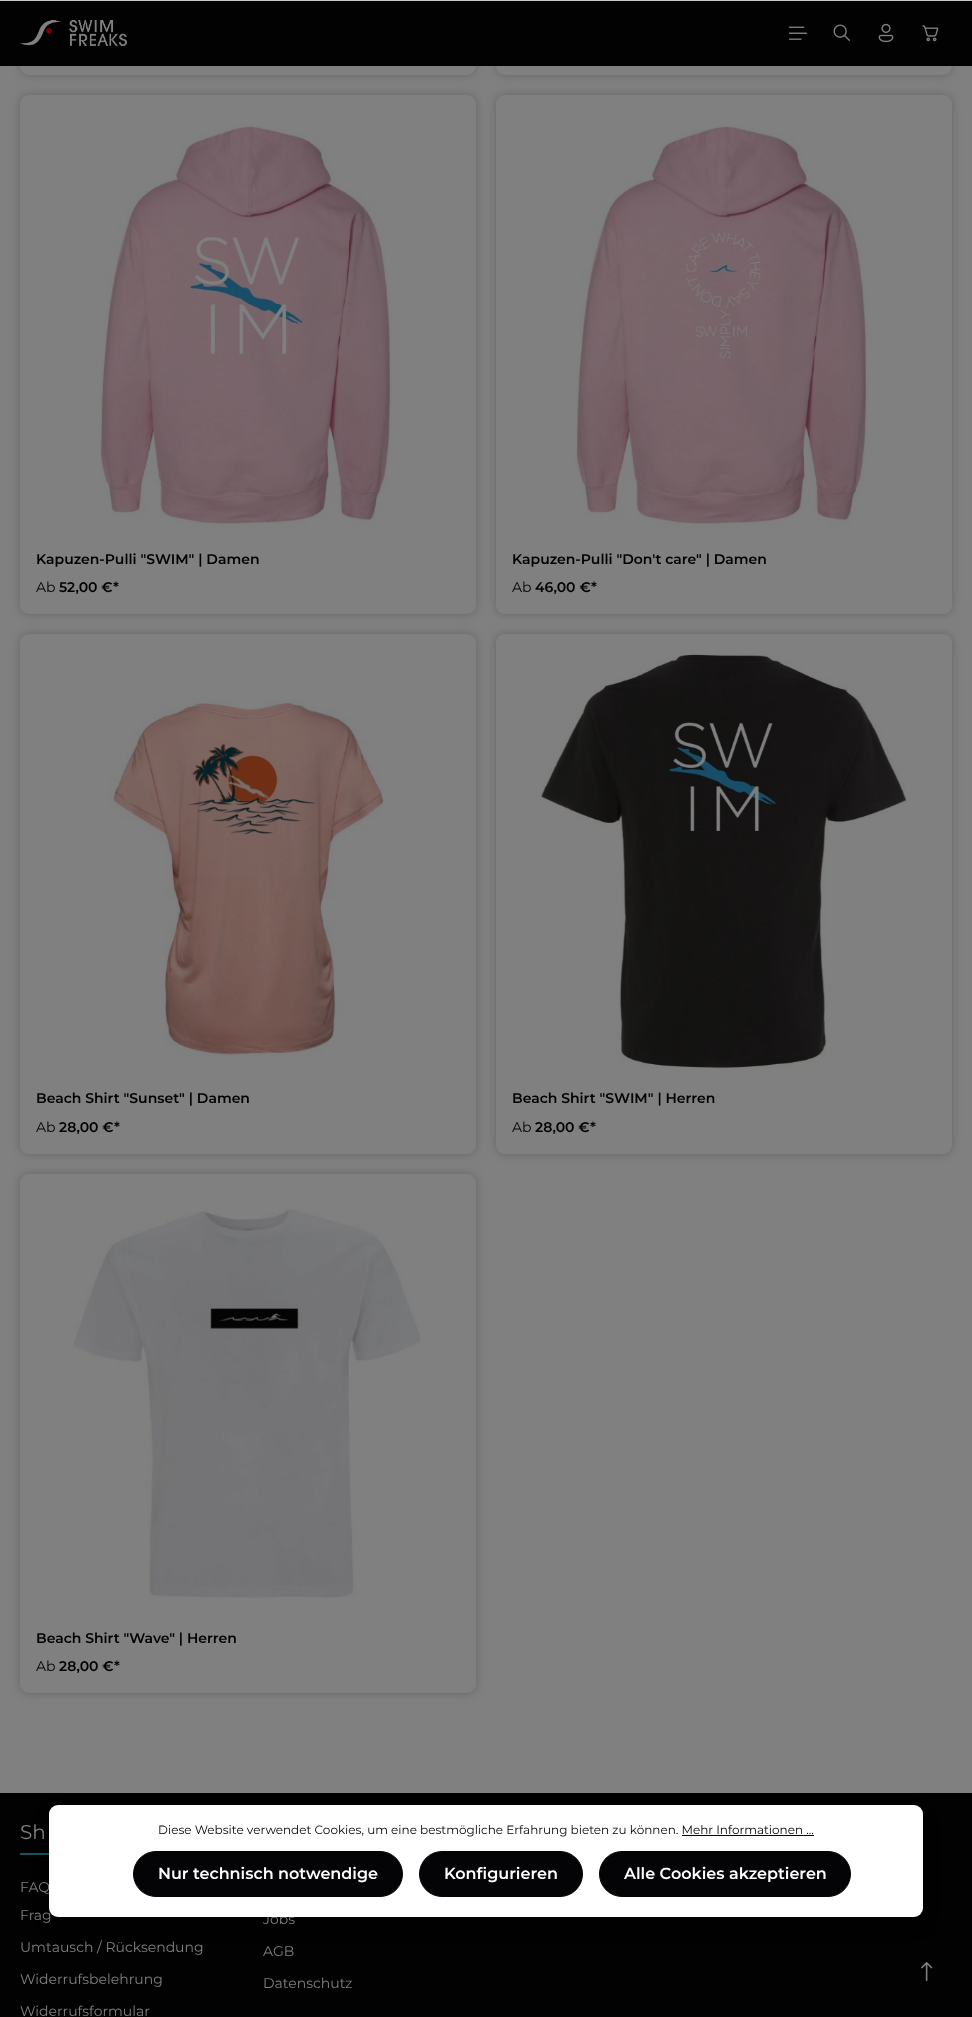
<svg xmlns="http://www.w3.org/2000/svg" xmlns:xlink="http://www.w3.org/1999/xlink" width="972" height="2017" viewBox="0 0 972 2017">
<style>
.cls-1{font:100 14px 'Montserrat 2';fill:#000000}
.cls-2{font:100 14px Montserrat;fill:#000000}
.cls-3{font:100 20px Montserrat;fill:#808080}
.cls-4{font:100 14px Montserrat;fill:#808080}
.cls-5{font:100 12px Montserrat;fill:#040406}
.cls-6{font:100 16px 'Montserrat 2';fill:#ffffff}
</style>
<rect width="100%" height="100%" fill="#808080"/>
<rect fill="#646466" filter="blur(5px)" x="20" y="-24" width="456" height="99" rx="9"/>
<rect fill="#808080" x="20" y="-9" width="456" height="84" rx="9"/>
<rect fill="#646466" filter="blur(5px)" x="496" y="-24" width="456" height="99" rx="9"/>
<rect fill="#808080" x="496" y="-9" width="456" height="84" rx="9"/>
<rect fill="#020203" x="0" y="1" width="972" height="65"/>
<image xlink:href="image0.png" x="20" y="19" width="108" height="28"/>
<image xlink:href="image1.png" x="788" y="26" width="20" height="14"/>
<image xlink:href="image2.png" x="833" y="24" width="17" height="17"/>
<image xlink:href="image3.png" x="878" y="23" width="16" height="20"/>
<image xlink:href="image4.png" x="922" y="25" width="17" height="17"/>
<rect fill="#646466" filter="blur(5px)" x="20" y="95" width="456" height="519" rx="9"/>
<rect fill="#808080" x="20" y="95" width="456" height="519" rx="9"/>
<image xlink:href="image5.png" x="100" y="125" width="292" height="404"/>
<rect fill="#7c7d7e" fill-opacity="0.03" x="192" y="265" width="108" height="56"/>
<rect fill="#646466" filter="blur(5px)" x="496" y="95" width="456" height="519" rx="9"/>
<rect fill="#808080" x="496" y="95" width="456" height="519" rx="9"/>
<image xlink:href="image6.png" x="574" y="125" width="294" height="404"/>
<rect fill="#7c7d7e" fill-opacity="0.03" x="721" y="266" width="6" height="4"/>
<rect fill="#646466" filter="blur(5px)" x="20" y="634" width="456" height="520" rx="9"/>
<rect fill="#808080" x="20" y="634" width="456" height="520" rx="9"/>
<image xlink:href="image7.png" x="109" y="698" width="276" height="359"/>
<rect fill="#7c7d7e" fill-opacity="0.03" x="174" y="745" width="128" height="131"/>
<rect fill="#646466" filter="blur(5px)" x="496" y="634" width="456" height="520" rx="9"/>
<rect fill="#808080" x="496" y="634" width="456" height="520" rx="9"/>
<image xlink:href="image8.png" x="540" y="654" width="367" height="415"/>
<rect fill="#7c7d7e" fill-opacity="0.03" x="543" y="655" width="362" height="412"/>
<rect fill="#646466" filter="blur(5px)" x="20" y="1174" width="456" height="519" rx="9"/>
<rect fill="#808080" x="20" y="1174" width="456" height="519" rx="9"/>
<image xlink:href="image9.png" x="73" y="1209" width="348" height="389"/>
<rect fill="#7c7d7e" fill-opacity="0.03" x="211" y="1309" width="87" height="19"/>
<rect fill="#020203" x="0" y="1793" width="972" height="224"/>
<rect fill="#19545d" x="20" y="1853" width="29" height="2"/>
<rect fill="#c7c7cc" x="0" y="0" width="972" height="1"/>
<rect fill="#000000" fill-opacity="0.25" filter="blur(8px)" x="49" y="1813" width="874" height="112" rx="9"/>
<image xlink:href="image10.png" x="921" y="1962" width="12" height="20"/>
<text class="cls-1" x="36" y="564">Kapuzen-Pulli "SWIM" | Damen</text>
<text class="cls-2" x="36" y="592">Ab</text>
<text class="cls-1" x="59" y="592">52,00 €*</text>
<text class="cls-1" x="512" y="564">Kapuzen-Pulli "Don't care" | Damen</text>
<text class="cls-2" x="512" y="592">Ab</text>
<text class="cls-1" x="535" y="592">46,00 €*</text>
<text class="cls-1" x="36" y="1103">Beach Shirt "Sunset" | Damen</text>
<text class="cls-2" x="36" y="1132">Ab</text>
<text class="cls-1" x="59" y="1132">28,00 €*</text>
<text class="cls-1" x="512" y="1103">Beach Shirt "SWIM" | Herren</text>
<text class="cls-2" x="512" y="1132">Ab</text>
<text class="cls-1" x="535" y="1132">28,00 €*</text>
<text class="cls-1" x="36" y="1643">Beach Shirt "Wave" | Herren</text>
<text class="cls-2" x="36" y="1671">Ab</text>
<text class="cls-1" x="59" y="1671">28,00 €*</text>
<text class="cls-3" x="20" y="1839">Sh</text>
<text class="cls-4" x="20" y="1892">FAQ</text>
<text class="cls-4" x="20" y="1920">Frag</text>
<text class="cls-4" x="20" y="1952">Umtausch / Rücksendung</text>
<text class="cls-4" x="20" y="1984">Widerrufsbelehrung</text>
<text class="cls-4" x="20" y="2016">Widerrufsformular</text>
<text class="cls-4" x="263" y="1924">Jobs</text>
<text class="cls-4" x="263" y="1956">AGB</text>
<text class="cls-4" x="263" y="1988">Datenschutz</text>
<rect fill="#ffffff" x="49" y="1805" width="874" height="112" rx="9"/>
<text class="cls-5" x="158" y="1834">Diese Website verwendet Cookies, um eine bestmögliche Erfahrung bieten zu können. Mehr Informationen ...</text>
<rect fill="#040406" x="682" y="1835" width="132" height="1"/>
<rect fill="#040406" stroke="#040406" x="133.5" y="1851.5" width="269" height="45" rx="22.5"/>
<text class="cls-6" x="158" y="1879">Nur technisch notwendige</text>
<rect fill="#040406" stroke="#040406" x="419.5" y="1851.5" width="163" height="45" rx="22.5"/>
<text class="cls-6" x="444" y="1879">Konfigurieren</text>
<rect fill="#040406" stroke="#040406" x="599.5" y="1851.5" width="251" height="45" rx="22.5"/>
<text class="cls-6" x="624" y="1879">Alle Cookies akzeptieren</text>
</svg>
